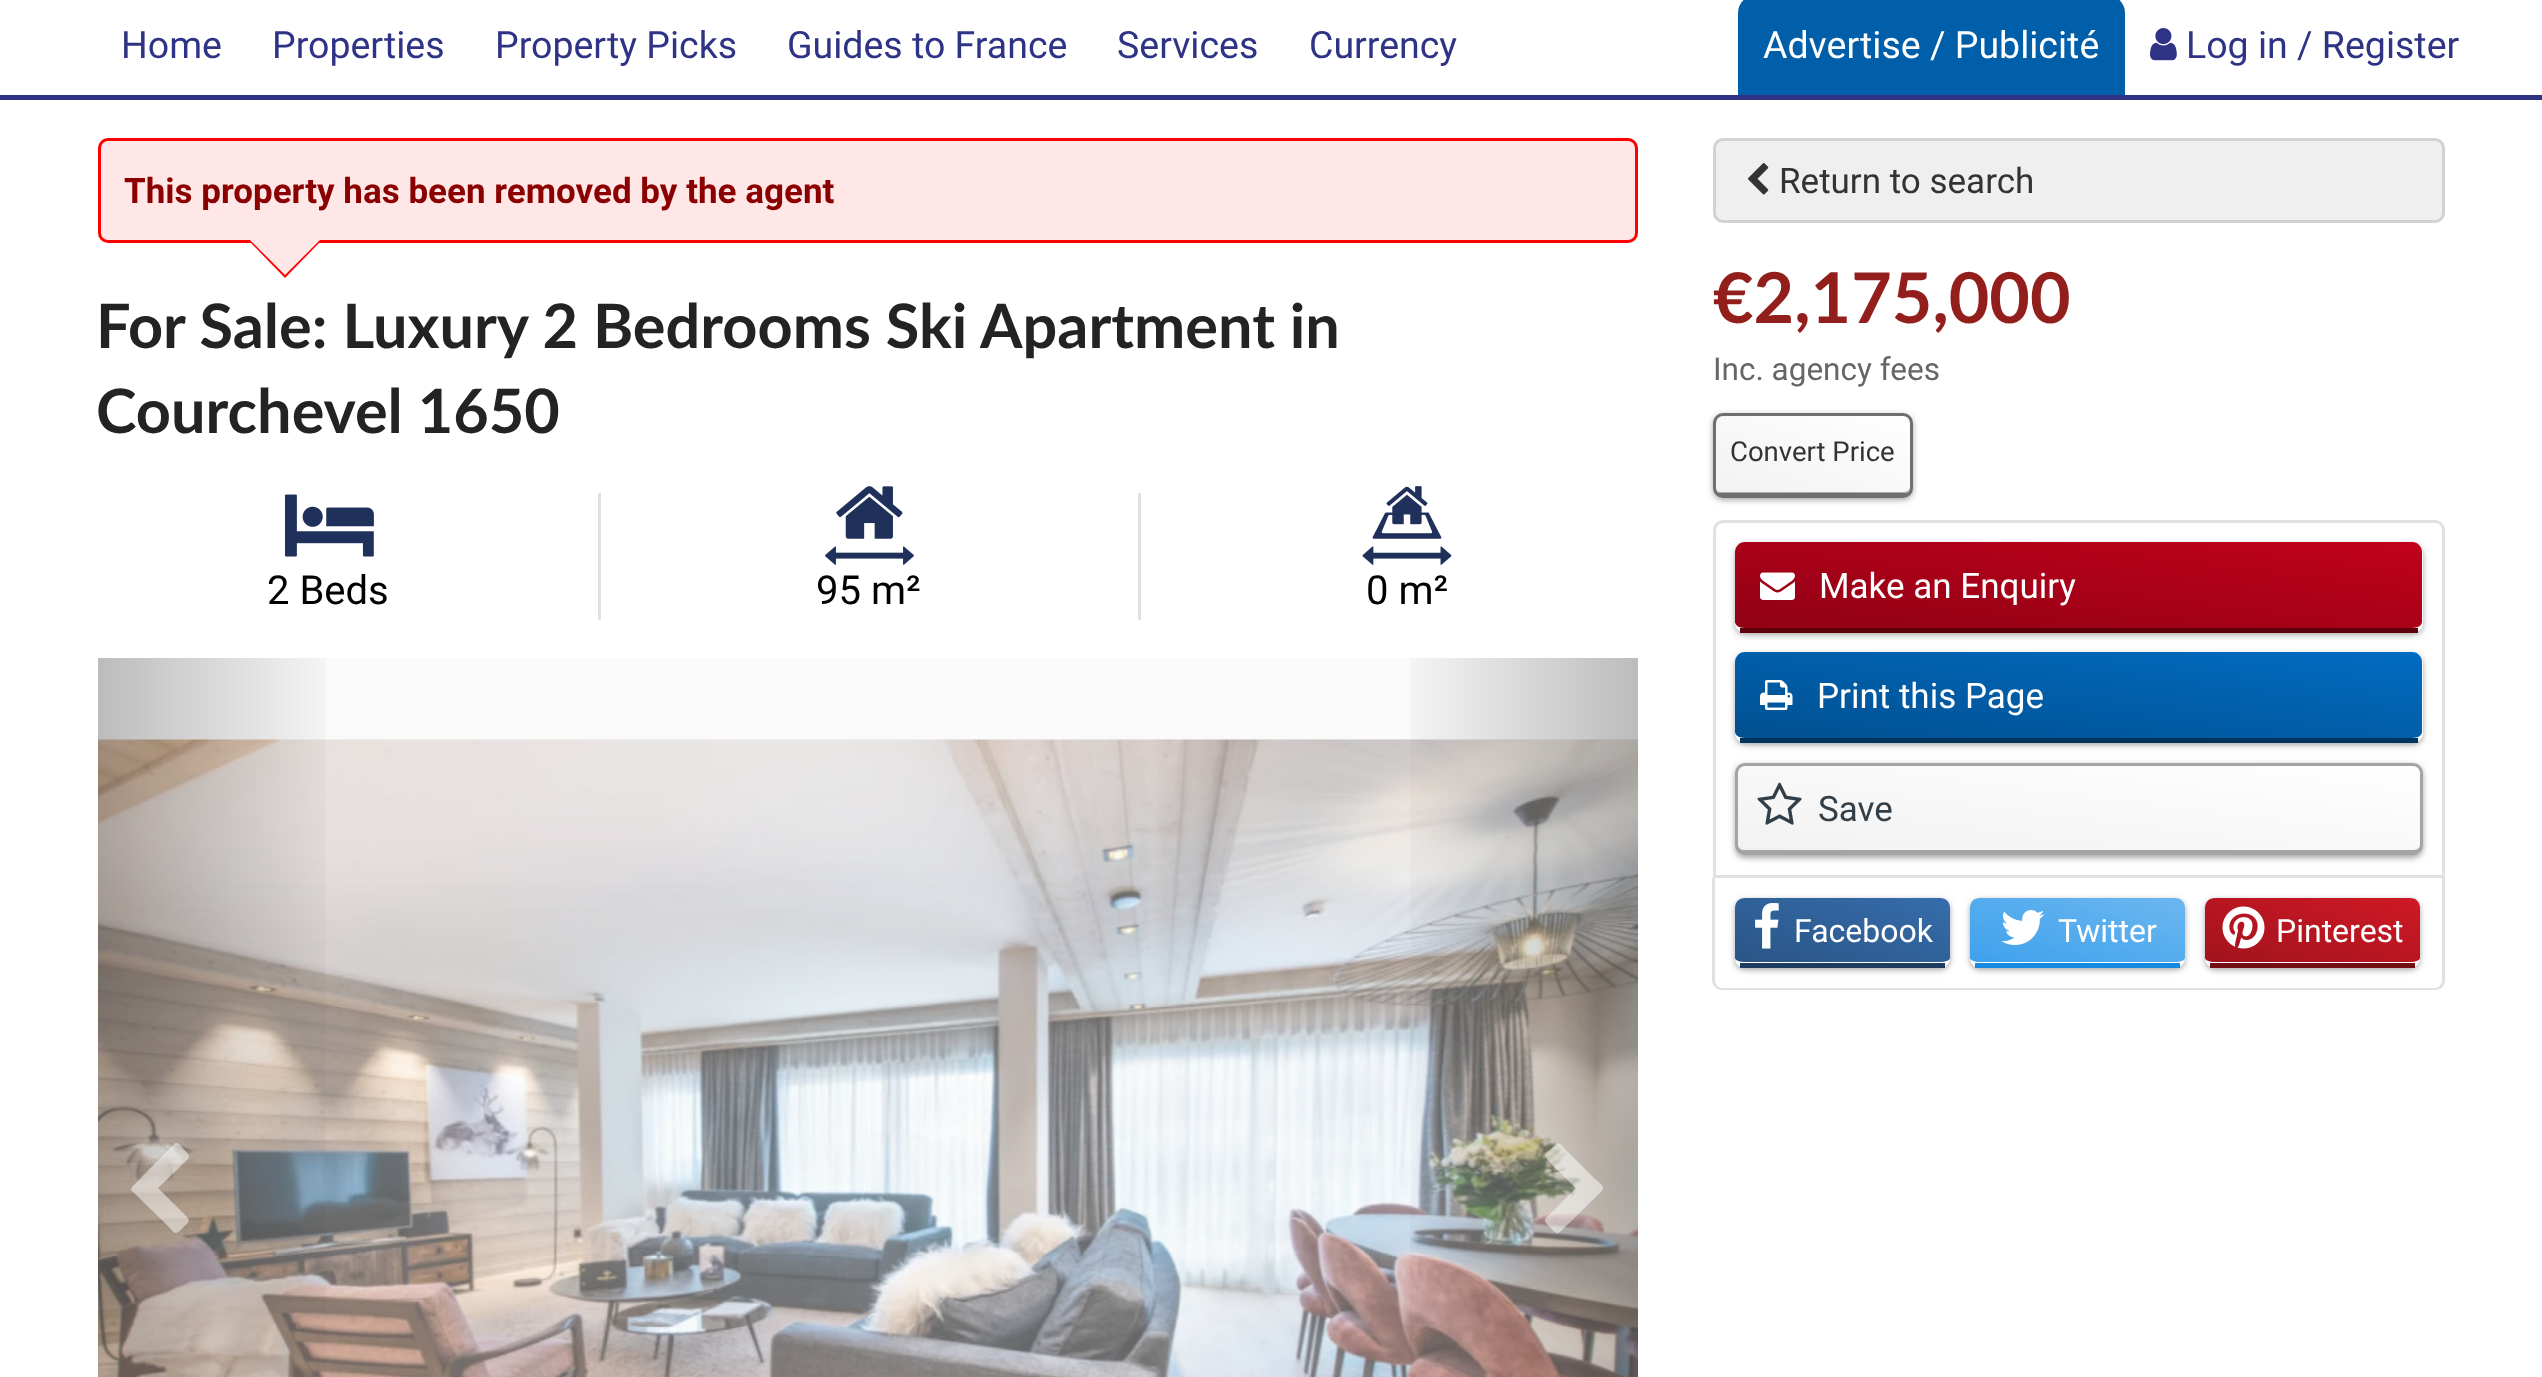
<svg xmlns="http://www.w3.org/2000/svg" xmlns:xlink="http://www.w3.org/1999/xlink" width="2542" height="1377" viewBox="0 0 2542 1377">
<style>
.cls-1{font:37.5px Roboto;fill:#2e3385}
.cls-2{font:37.5px Roboto;fill:#ffffff}
.cls-3{font:bold 35px Roboto;fill:#8b0000}
.cls-4{font:bold 61.25px Lato;fill:#232323}
.cls-5{font:40px Roboto;fill:#000000}
.cls-6{font:35px Roboto;fill:#333333}
.cls-7{font:bold 70px Lato;fill:#931f1d}
.cls-8{font:31.5px Roboto;fill:#666666}
.cls-9{font:27.5px Roboto;fill:#333333}
.cls-10{font:35px Roboto;fill:#ffffff}
.cls-11{font:35px Roboto;fill:#333f48}
.cls-12{font:32px Roboto;fill:#ffffff}
</style>
<defs>
<linearGradient id="g1" gradientUnits="userSpaceOnUse" x1="97" y1="1171" x2="348" y2="1171"><stop offset="0" stop-color="#000000" stop-opacity="0.25"/><stop offset="1" stop-color="#000000" stop-opacity="0"/></linearGradient>
<linearGradient id="g2" gradientUnits="userSpaceOnUse" x1="1638" y1="1171" x2="1388" y2="1171"><stop offset="0" stop-color="#000000" stop-opacity="0.25"/><stop offset="1" stop-color="#000000" stop-opacity="0"/></linearGradient>
<linearGradient id="g3" gradientUnits="userSpaceOnUse" x1="1839" y1="387" x2="1786" y2="521"><stop offset="0" stop-color="#ffffff"/><stop offset="1" stop-color="#f2f2f2"/></linearGradient>
<clipPath id="clip1"><path d="M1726 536H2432V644H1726ZM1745 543H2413C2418.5 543 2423 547.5 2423 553V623C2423 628.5 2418.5 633 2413 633H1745C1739.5 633 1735 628.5 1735 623V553C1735 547.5 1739.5 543 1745 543Z" clip-rule="evenodd"/></clipPath>
<clipPath id="clip2"><path d="M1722 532H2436V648H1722ZM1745 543H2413C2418.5 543 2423 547.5 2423 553V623C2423 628.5 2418.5 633 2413 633H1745C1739.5 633 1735 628.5 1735 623V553C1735 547.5 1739.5 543 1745 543Z" clip-rule="evenodd"/></clipPath>
<linearGradient id="g4" gradientUnits="userSpaceOnUse" x1="2089" y1="501" x2="2068" y2="669"><stop offset="0" stop-color="#c2011c"/><stop offset="1" stop-color="#900114"/></linearGradient>
<clipPath id="clip3"><path d="M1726 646H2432V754H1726ZM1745 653H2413C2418.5 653 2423 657.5 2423 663V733C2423 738.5 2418.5 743 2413 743H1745C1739.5 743 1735 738.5 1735 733V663C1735 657.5 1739.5 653 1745 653Z" clip-rule="evenodd"/></clipPath>
<clipPath id="clip4"><path d="M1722 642H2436V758H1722ZM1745 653H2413C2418.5 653 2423 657.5 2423 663V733C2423 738.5 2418.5 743 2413 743H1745C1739.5 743 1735 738.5 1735 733V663C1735 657.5 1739.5 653 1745 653Z" clip-rule="evenodd"/></clipPath>
<linearGradient id="g5" gradientUnits="userSpaceOnUse" x1="2089" y1="611" x2="2068" y2="779"><stop offset="0" stop-color="#016cc2"/><stop offset="1" stop-color="#015090"/></linearGradient>
<linearGradient id="g6" gradientUnits="userSpaceOnUse" x1="2089" y1="724" x2="2068" y2="891"><stop offset="0" stop-color="#ffffff"/><stop offset="1" stop-color="#f2f2f2"/></linearGradient>
<clipPath id="clip5"><path d="M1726 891H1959V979H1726ZM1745 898H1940C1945.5 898 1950 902.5 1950 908V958C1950 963.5 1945.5 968 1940 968H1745C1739.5 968 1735 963.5 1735 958V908C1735 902.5 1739.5 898 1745 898Z" clip-rule="evenodd"/></clipPath>
<clipPath id="clip6"><path d="M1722 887H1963V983H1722ZM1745 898H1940C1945.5 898 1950 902.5 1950 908V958C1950 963.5 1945.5 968 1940 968H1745C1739.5 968 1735 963.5 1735 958V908C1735 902.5 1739.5 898 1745 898Z" clip-rule="evenodd"/></clipPath>
<linearGradient id="g7" gradientUnits="userSpaceOnUse" x1="1861" y1="870" x2="1824" y2="990"><stop offset="0" stop-color="#366dac"/><stop offset="1" stop-color="#2a5586"/></linearGradient>
<clipPath id="clip7"><path d="M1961 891H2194V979H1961ZM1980 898H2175C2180.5 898 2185 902.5 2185 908V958C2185 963.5 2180.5 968 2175 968H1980C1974.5 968 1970 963.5 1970 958V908C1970 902.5 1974.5 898 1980 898Z" clip-rule="evenodd"/></clipPath>
<clipPath id="clip8"><path d="M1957 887H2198V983H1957ZM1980 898H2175C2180.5 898 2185 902.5 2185 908V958C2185 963.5 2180.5 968 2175 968H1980C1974.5 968 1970 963.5 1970 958V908C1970 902.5 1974.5 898 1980 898Z" clip-rule="evenodd"/></clipPath>
<linearGradient id="g8" gradientUnits="userSpaceOnUse" x1="2096" y1="870" x2="2059" y2="990"><stop offset="0" stop-color="#6cb7f0"/><stop offset="1" stop-color="#3ea1ec"/></linearGradient>
<clipPath id="clip9"><path d="M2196 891H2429V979H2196ZM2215 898H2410C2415.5 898 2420 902.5 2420 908V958C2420 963.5 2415.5 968 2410 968H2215C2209.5 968 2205 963.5 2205 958V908C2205 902.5 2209.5 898 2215 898Z" clip-rule="evenodd"/></clipPath>
<clipPath id="clip10"><path d="M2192 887H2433V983H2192ZM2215 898H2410C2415.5 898 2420 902.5 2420 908V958C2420 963.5 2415.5 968 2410 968H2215C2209.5 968 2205 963.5 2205 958V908C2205 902.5 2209.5 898 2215 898Z" clip-rule="evenodd"/></clipPath>
<linearGradient id="g9" gradientUnits="userSpaceOnUse" x1="2331" y1="870" x2="2294" y2="990"><stop offset="0" stop-color="#cf1925"/><stop offset="1" stop-color="#a1131d"/></linearGradient>
</defs>
<rect width="100%" height="100%" fill="#ffffff"/>
<rect fill="#2e3385" x="0" y="95" width="2542" height="5"/>
<path fill="#015ea9" d="M1756-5H2107C2117-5 2125 3 2125 13V95H1738V13C1738 3 1746-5 1756-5Z"/>
<image xlink:href="image0.png" x="2150" y="28" width="27" height="33"/>
<rect fill="#ffe7e7" stroke="#ff0000" stroke-width="3" x="99.5" y="139.5" width="1537" height="102" rx="8.5"/>
<path fill="#ff0002" d="M250 242H320L285 278Z"/>
<path fill="#ffe7e7" d="M250 240H320L285 275Z"/>
<image xlink:href="image1.png" x="285" y="494" width="89" height="63"/>
<rect fill="#e1e1e1" x="598" y="493" width="3" height="127"/>
<image xlink:href="image2.png" x="825" y="486" width="89" height="79"/>
<rect fill="#e1e1e1" x="1138" y="493" width="3" height="127"/>
<image xlink:href="image3.png" x="1362" y="486" width="90" height="79"/>
<rect fill="#fafafa" x="98" y="658" width="1540" height="719"/>
<image xlink:href="image4.png" x="98" y="739" width="1540" height="638"/>
<rect fill="url(#g1)" x="98" y="658" width="228" height="719"/>
<path fill="#ffffff" fill-opacity="0.5" d="M188 1159L158 1188L183 1213C192 1222 190 1220 182 1229C174 1236 175 1233 167 1225L131 1190L132 1187L174 1144C177 1141 180 1145 182 1147L188 1154C189 1156 189 1157 188 1159Z"/>
<rect fill="url(#g2)" x="1410" y="658" width="228" height="719"/>
<path fill="#ffffff" fill-opacity="0.5" d="M1602 1191L1560 1232C1556 1236 1551 1228 1549 1226C1547 1224 1543 1221 1546 1218L1576 1188C1572 1184 1545 1159 1545 1156C1545 1153 1549 1151 1551 1149C1559 1140 1558 1142 1567 1151L1595 1179C1596 1180 1604 1185 1603 1189Z"/>
<rect fill="#efefef" stroke="#d2d2d2" stroke-width="3" x="1714.5" y="139.5" width="729" height="82" rx="8.5"/>
<image xlink:href="image5.png" x="1748" y="163" width="21" height="32"/>
<rect fill="#000000" fill-opacity="0.24" filter="blur(2.5px)" x="1713" y="415" width="200" height="85" rx="10"/>
<rect fill="#000000" fill-opacity="0.12" filter="blur(4px)" x="1713" y="415" width="200" height="85" rx="10"/>
<path fill="url(#g3)" d="M1722 415H1902C1907 415 1910 418 1910 422V488C1910 490 1907 492 1902 492H1722C1718 492 1715 490 1715 488V422C1715 418 1718 415 1722 415Z"/>
<rect fill="none" stroke="#6e6f72" stroke-width="3" x="1714.5" y="414.5" width="197" height="82" rx="8.5"/>
<rect fill="#6e6f72" x="1718" y="493" width="190" height="2"/>
<path fill="none" stroke="#e1e1e1" stroke-width="3" d="M1723 521.5H2435C2439.5 521.5 2443.5 525.5 2443.5 530V876.5H1714.5V530C1714.5 525.5 1718.5 521.5 1723 521.5Z"/>
<g clip-path="url(#clip1)">
<rect fill="#000000" fill-opacity="0.24" filter="blur(2.5px)" x="1735" y="545" width="688" height="90" rx="10"/>
</g>
<g clip-path="url(#clip2)">
<rect fill="#000000" fill-opacity="0.12" filter="blur(4px)" x="1735" y="545" width="688" height="90" rx="10"/>
</g>
<path fill="url(#g4)" d="M1745 542H2412C2418 542 2422 547 2422 552V622C2422 625 2418 628 2412 628H1745C1739 628 1735 625 1735 622V552C1735 547 1739 542 1745 542Z"/>
<rect fill="#5d010d" x="1740" y="628" width="678" height="5"/>
<image xlink:href="image6.png" x="1760" y="572" width="35" height="28"/>
<g clip-path="url(#clip3)">
<rect fill="#000000" fill-opacity="0.24" filter="blur(2.5px)" x="1735" y="655" width="688" height="90" rx="10"/>
</g>
<g clip-path="url(#clip4)">
<rect fill="#000000" fill-opacity="0.12" filter="blur(4px)" x="1735" y="655" width="688" height="90" rx="10"/>
</g>
<path fill="url(#g5)" d="M1745 652H2412C2418 652 2422 657 2422 662V732C2422 735 2418 738 2412 738H1745C1739 738 1735 735 1735 732V662C1735 657 1739 652 1745 652Z"/>
<rect fill="#01345d" x="1740" y="738" width="678" height="5"/>
<image xlink:href="image7.png" x="1760" y="680" width="33" height="30"/>
<rect fill="#000000" fill-opacity="0.24" filter="blur(2.5px)" x="1735" y="765" width="688" height="93" rx="10"/>
<rect fill="#000000" fill-opacity="0.12" filter="blur(4px)" x="1735" y="765" width="688" height="93" rx="10"/>
<path fill="url(#g6)" d="M1745 765H2412C2417 765 2420 768 2420 772V845C2420 848 2417 850 2412 850H1745C1741 850 1738 848 1738 845V772C1738 768 1741 765 1745 765Z"/>
<rect fill="none" stroke="#a4a4a4" stroke-width="3" x="1736.5" y="764.5" width="685" height="89" rx="8.5"/>
<rect fill="#a4a4a4" x="1740" y="850" width="678" height="2"/>
<image xlink:href="image8.png" x="1757" y="782" width="45" height="43"/>
<path fill="#e1e1e1" fill-rule="evenodd" d="M1712 878H2445V980C2445 986 2441 990 2435 990H1722C1717 990 1712 986 1712 980ZM1715 878H2442V980C2442 984 2439 988 2435 988H1722C1718 988 1715 984 1715 980Z"/>
<g clip-path="url(#clip5)">
<rect fill="#000000" fill-opacity="0.24" filter="blur(2.5px)" x="1735" y="900" width="215" height="70" rx="10"/>
</g>
<g clip-path="url(#clip6)">
<rect fill="#000000" fill-opacity="0.12" filter="blur(4px)" x="1735" y="900" width="215" height="70" rx="10"/>
</g>
<path fill="url(#g7)" d="M1745 898H1940C1946 898 1950 902 1950 908V958C1950 960 1946 962 1940 962H1745C1739 962 1735 960 1735 958V908C1735 902 1739 898 1745 898Z"/>
<rect fill="#1e3c5f" x="1740" y="963" width="205" height="5"/>
<image xlink:href="image9.png" x="1755" y="903" width="24" height="46"/>
<g clip-path="url(#clip7)">
<rect fill="#000000" fill-opacity="0.24" filter="blur(2.5px)" x="1970" y="900" width="215" height="70" rx="10"/>
</g>
<g clip-path="url(#clip8)">
<rect fill="#000000" fill-opacity="0.12" filter="blur(4px)" x="1970" y="900" width="215" height="70" rx="10"/>
</g>
<path fill="url(#g8)" d="M1980 898H2175C2181 898 2185 902 2185 908V958C2185 960 2181 962 2175 962H1980C1974 962 1970 960 1970 958V908C1970 902 1974 898 1980 898Z"/>
<rect fill="#1689e0" x="1975" y="963" width="205" height="5"/>
<image xlink:href="image10.png" x="2001" y="910" width="44" height="35"/>
<g clip-path="url(#clip9)">
<rect fill="#000000" fill-opacity="0.24" filter="blur(2.5px)" x="2205" y="900" width="215" height="70" rx="10"/>
</g>
<g clip-path="url(#clip10)">
<rect fill="#000000" fill-opacity="0.12" filter="blur(4px)" x="2205" y="900" width="215" height="70" rx="10"/>
</g>
<path fill="url(#g9)" d="M2215 898H2410C2416 898 2420 902 2420 908V958C2420 960 2416 962 2410 962H2215C2209 962 2205 960 2205 958V908C2205 902 2209 898 2215 898Z"/>
<rect fill="#740e15" x="2210" y="963" width="205" height="5"/>
<image xlink:href="image11.png" x="2222" y="906" width="43" height="43"/>
<text class="cls-1" x="121" y="58">Home</text>
<text class="cls-1" x="272" y="58">Properties</text>
<text class="cls-1" x="495" y="58">Property Picks</text>
<text class="cls-1" x="787" y="58">Guides to France</text>
<text class="cls-1" x="1117" y="58">Services</text>
<text class="cls-1" x="1309" y="58">Currency</text>
<text class="cls-2" x="1763" y="58">Advertise / Publicité</text>
<text class="cls-1" x="2186" y="58">Log in / Register</text>
<text class="cls-3" x="124" y="203">This property has been removed by the agent</text>
<text class="cls-4"><tspan x="96" y="348">For Sale: Luxury 2 Bedrooms Ski Apartment in</tspan><tspan x="96" y="433">Courchevel 1650</tspan></text>
<text class="cls-5" x="267" y="604">2 Beds</text>
<text class="cls-5" x="816" y="604">95 m²</text>
<text class="cls-5" x="1366" y="604">0 m²</text>
<text class="cls-6" x="1779" y="193">Return to search</text>
<text class="cls-7" x="1713" y="323">€2,175,000</text>
<text class="cls-8" x="1713" y="380">Inc. agency fees</text>
<text class="cls-9" x="1730" y="461">Convert Price</text>
<text class="cls-10" x="1819" y="598">Make an Enquiry</text>
<text class="cls-10" x="1817" y="708">Print this Page</text>
<text class="cls-11" x="1818" y="821">Save</text>
<text class="cls-12" x="1794" y="942">Facebook</text>
<text class="cls-12" x="2058" y="942">Twitter</text>
<text class="cls-12" x="2276" y="942">Pinterest</text>
</svg>
